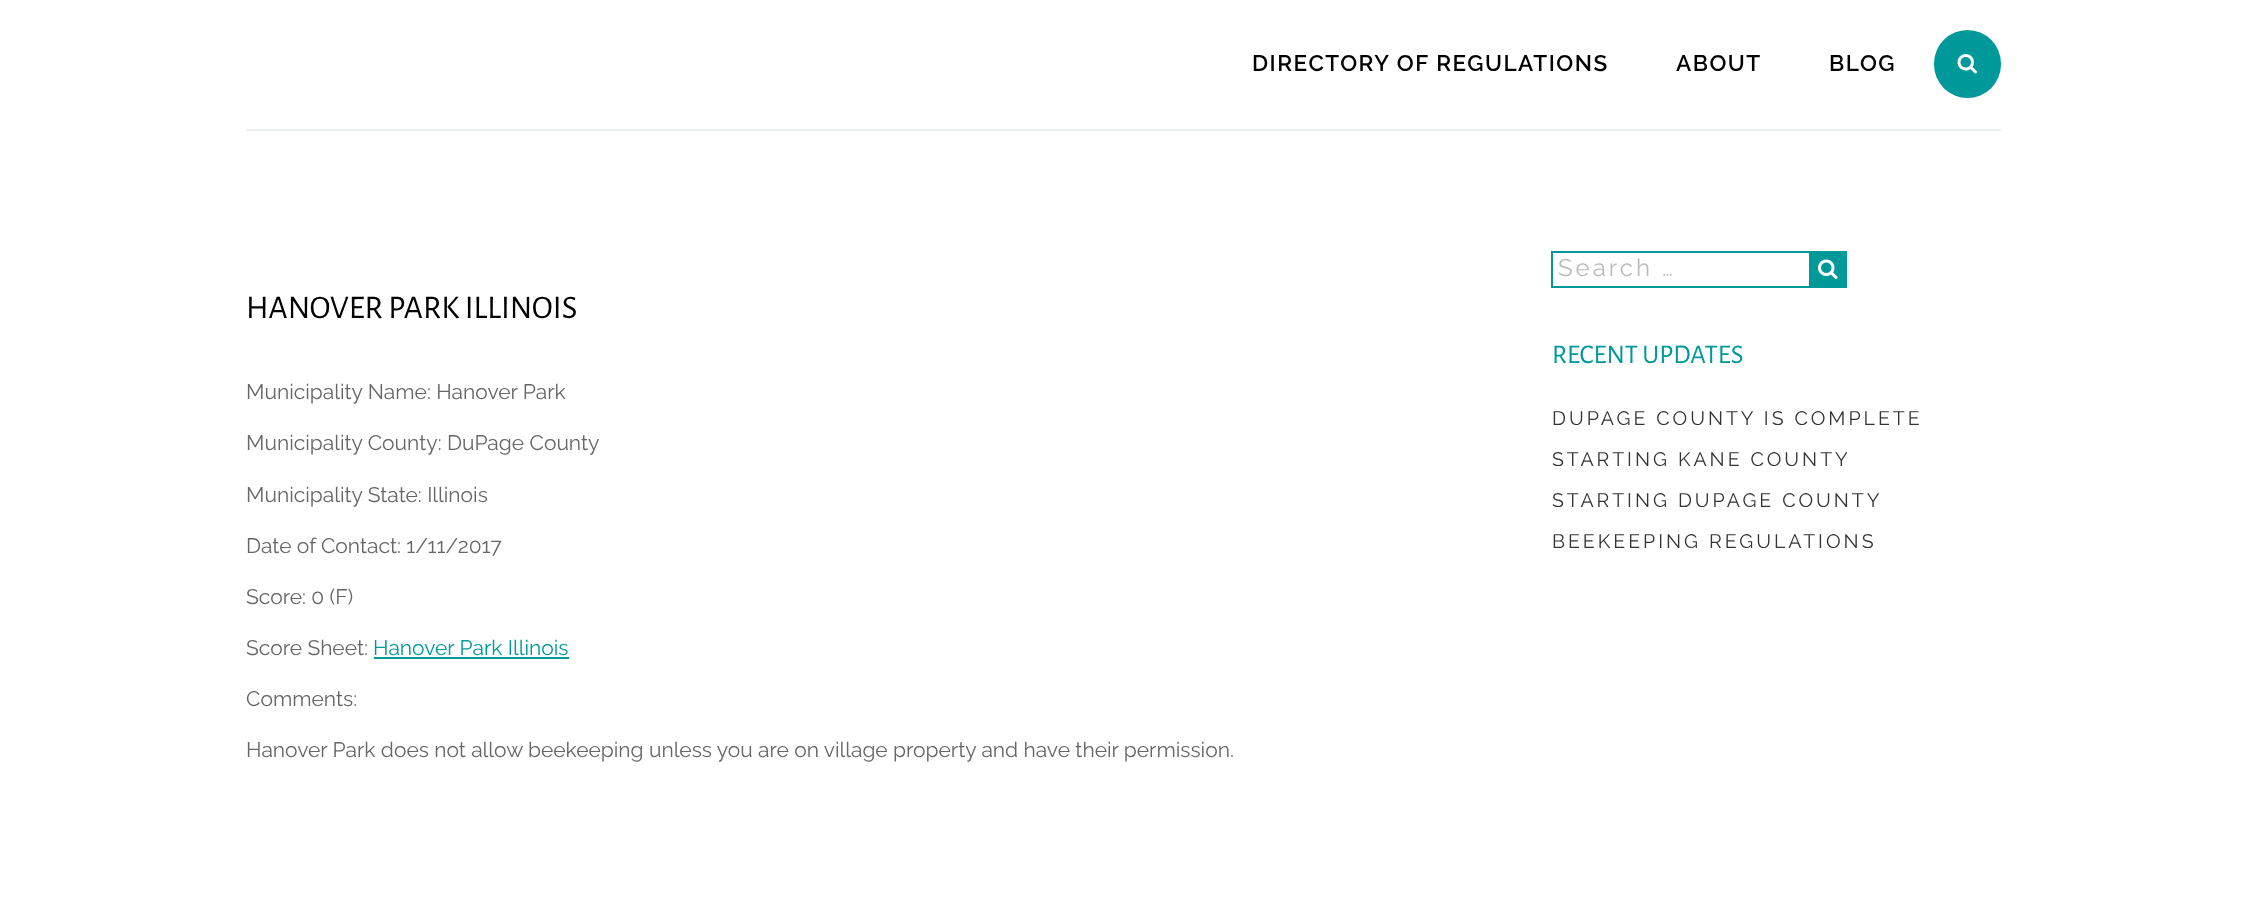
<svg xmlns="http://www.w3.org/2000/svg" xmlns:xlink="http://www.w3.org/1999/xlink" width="2247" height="912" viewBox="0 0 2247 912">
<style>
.cls-1{font:100 22.5px Raleway;letter-spacing:1.5px;fill:#000000}
.cls-2{font:33px Alegreya Sans;fill:#000000}
.cls-3{font:100 21px 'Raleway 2';fill:#666666}
.cls-4{font:100 21px 'Raleway 2';fill:#009999}
.cls-5{font:100 24px 'Raleway 2';letter-spacing:3px;fill:#bbbbbb}
.cls-6{font:27px Alegreya Sans;fill:#009999}
.cls-7{font:100 19.5px 'Raleway 2';letter-spacing:3px;fill:#333333}
</style>
<rect width="100%" height="100%" fill="#ffffff"/>
<rect fill="#eaeff0" x="246" y="129" width="1755" height="2"/>
<rect fill="#009999" x="1934" y="30" width="67" height="68" rx="33.5"/>
<image xlink:href="image0.png" x="1957" y="54" width="20" height="20"/>
<rect fill="#009999" x="374" y="657" width="195" height="2"/>
<rect fill="none" stroke="#009999" stroke-width="2" x="1552" y="252" width="259" height="35"/>
<rect fill="#009999" x="1809" y="251" width="38" height="37"/>
<image xlink:href="image1.png" x="1818" y="259" width="20" height="20"/>
<text class="cls-1" x="1252" y="71">DIRECTORY OF REGULATIONS</text>
<text class="cls-1" x="1676" y="71">ABOUT</text>
<text class="cls-1" x="1829" y="71">BLOG</text>
<text class="cls-2" x="246" y="318">HANOVER PARK ILLINOIS</text>
<text class="cls-3" x="246" y="399">Municipality Name: Hanover Park</text>
<text class="cls-3" x="246" y="450">Municipality County: DuPage County</text>
<text class="cls-3" x="246" y="502">Municipality State: Illinois</text>
<text class="cls-3" x="246" y="553">Date of Contact: 1/11/2017</text>
<text class="cls-3" x="246" y="604">Score: 0 (F)</text>
<text class="cls-3" x="246" y="655">Score Sheet:</text>
<text class="cls-4" x="373" y="655">Hanover Park Illinois</text>
<text class="cls-3" x="246" y="706">Comments:</text>
<text class="cls-3" x="246" y="757">Hanover Park does not allow beekeeping unless you are on village property and have their permission.</text>
<text class="cls-5" x="1558" y="276">Search …</text>
<text class="cls-6" x="1552" y="363">RECENT UPDATES</text>
<text class="cls-7" x="1552" y="425">DUPAGE COUNTY IS COMPLETE</text>
<text class="cls-7" x="1552" y="466">STARTING KANE COUNTY</text>
<text class="cls-7" x="1552" y="507">STARTING DUPAGE COUNTY</text>
<text class="cls-7" x="1552" y="548">BEEKEEPING REGULATIONS</text>
</svg>
